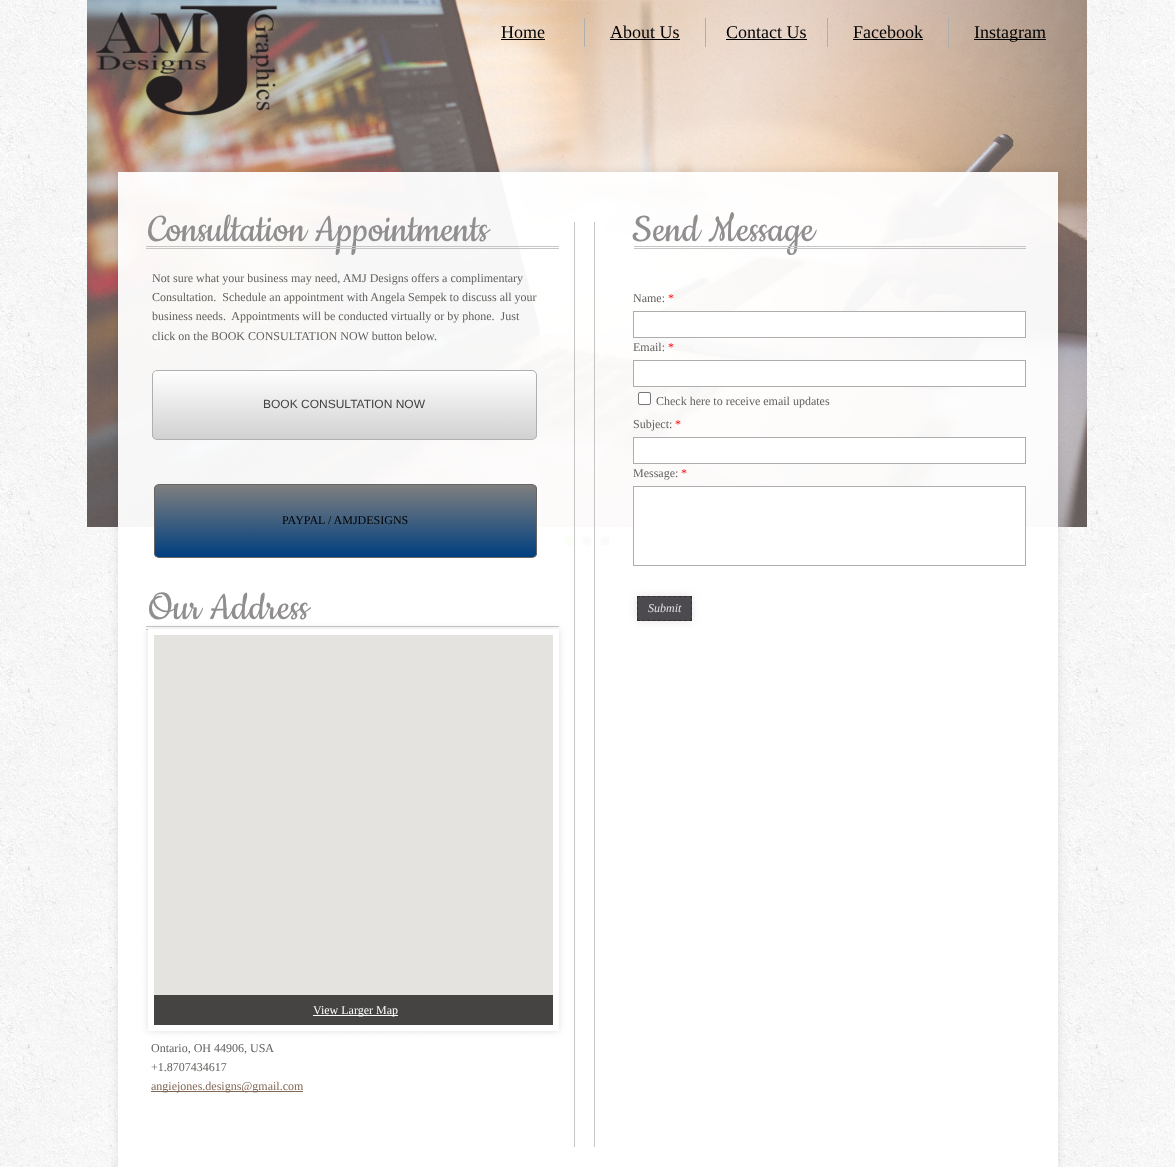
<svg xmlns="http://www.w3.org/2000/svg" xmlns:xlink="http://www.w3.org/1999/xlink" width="1175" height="1167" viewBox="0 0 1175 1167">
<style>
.cls-1{font:18px Liberation Serif;fill:#000000}
.cls-2{font:44px Cookie;fill:#908e8f}
.cls-3{font:12px Liberation Serif;fill:#63615e}
.cls-4{font:12px Liberation Serif;fill:#ff0000}
.cls-5{font:italic 12px Liberation Serif;fill:#e2e2e2}
.cls-6{font:12px Liberation Sans;fill:#414141}
.cls-7{font:12px Liberation Serif;fill:#000000}
.cls-8{font:12px Liberation Serif;fill:#ffffff}
.cls-9{font:12px Liberation Serif;fill:#826855}
</style>
<defs>
<clipPath id="clip1"><path d="M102 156H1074V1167H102ZM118 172H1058V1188H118Z" clip-rule="evenodd"/></clipPath>
<clipPath id="clip2"><rect x="152" y="370" width="385" height="70" rx="5"/></clipPath>
<linearGradient id="g1" gradientUnits="userSpaceOnUse" x1="345" y1="371" x2="345" y2="439"><stop offset="0" stop-color="#ffffff"/><stop offset="1" stop-color="#d1d1d1"/></linearGradient>
<clipPath id="clip3"><rect x="154" y="484" width="383" height="74" rx="5"/></clipPath>
<linearGradient id="g2" gradientUnits="userSpaceOnUse" x1="346" y1="485" x2="346" y2="557"><stop offset="0" stop-color="#7f7f7f"/><stop offset="1" stop-color="#003f7f"/></linearGradient>
</defs>
<rect width="100%" height="100%" fill="#ffffff"/>
<image xlink:href="image0.png" x="0" y="0" width="1175" height="1167"/>
<image xlink:href="image1.png" x="87" y="0" width="1000" height="527"/>
<circle fill="#98c22a" fill-opacity="0.7" cx="569" cy="541" r="5"/>
<circle fill="#969696" fill-opacity="0.7" cx="587" cy="541" r="5"/>
<circle fill="#969696" fill-opacity="0.7" cx="605" cy="541" r="5"/>
<image xlink:href="image2.png" x="96" y="5" width="182" height="111"/>
<rect fill="#aeaeae" x="584" y="18" width="1" height="29"/>
<rect fill="#000000" x="501" y="39" width="44" height="1"/>
<rect fill="#aeaeae" x="705" y="18" width="1" height="29"/>
<rect fill="#000000" x="610" y="39" width="70" height="1"/>
<rect fill="#aeaeae" x="827" y="18" width="1" height="29"/>
<rect fill="#000000" x="726" y="39" width="81" height="1"/>
<rect fill="#aeaeae" x="948" y="18" width="1" height="29"/>
<rect fill="#000000" x="853" y="39" width="70" height="1"/>
<rect fill="#000000" x="974" y="39" width="72" height="1"/>
<g clip-path="url(#clip1)">
<rect fill="#000000" fill-opacity="0.1" filter="blur(5px)" x="118" y="172" width="940" height="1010"/>
</g>
<rect fill="#ffffff" fill-opacity="0.95" x="118" y="172" width="940" height="995"/>
<rect fill="#c6c5c5" x="574" y="222" width="1" height="925"/>
<rect fill="#c6c5c5" x="594" y="222" width="1" height="925"/>
<rect fill="#ffffff" stroke="#adadad" x="633.5" y="311.5" width="392" height="26"/>
<rect fill="#ffffff" stroke="#adadad" x="633.5" y="360.5" width="392" height="26"/>
<rect fill="#ffffff" stroke="#767676" x="638.5" y="392.5" width="12" height="12" rx="1.5"/>
<rect fill="#ffffff" stroke="#adadad" x="633.5" y="437.5" width="392" height="26"/>
<rect fill="#ffffff" x="634" y="487" width="391" height="40"/>
<rect fill="none" stroke="#adadad" x="633.5" y="486.5" width="392" height="79"/>
<rect fill="#000000" fill-opacity="0.1" filter="blur(5px)" x="637" y="596" width="55" height="25"/>
<rect fill="#4c4a4e" x="637" y="596" width="55" height="25"/>
<path fill="none" stroke="#323033" stroke-dasharray="3 2.2" d="M637 596.5H692"/>
<path fill="none" stroke="#323033" stroke-dasharray="3 2.5" d="M691.5 596V621"/>
<path fill="none" stroke="#323033" stroke-dasharray="3 2.2" d="M637 620.5H692"/>
<path fill="none" stroke="#323033" stroke-dasharray="3 2.5" d="M637.5 596V621"/>
<g clip-path="url(#clip2)">
<rect fill="url(#g1)" x="152" y="371" width="385" height="68"/>
</g>
<rect fill="none" stroke="#afafaf" x="152.5" y="370.5" width="384" height="69" rx="4.5"/>
<g clip-path="url(#clip3)">
<rect fill="url(#g2)" x="154" y="485" width="383" height="72"/>
</g>
<rect fill="none" stroke="#666666" x="154.5" y="484.5" width="382" height="73" rx="4.5"/>
<rect fill="#c6c5c5" x="146" y="626" width="413" height="1"/>
<rect fill="#c6c5c5" x="146" y="629" width="2" height="1"/>
<rect fill="#000000" fill-opacity="0.12" filter="blur(3.5px)" x="148" y="629" width="411" height="402"/>
<rect fill="none" stroke="#ffffff" stroke-width="6" x="151" y="632" width="405" height="396"/>
<rect fill="#e5e3df" x="154" y="635" width="399" height="360"/>
<rect fill="#454443" x="154" y="995" width="399" height="30"/>
<rect fill="#ffffff" x="313" y="1015" width="85" height="1"/>
<rect fill="#826855" x="151" y="1091" width="152" height="1"/>
<text class="cls-1" x="501" y="38">Home</text>
<text class="cls-1" x="610" y="38">About Us</text>
<text class="cls-1" x="726" y="38">Contact Us</text>
<text class="cls-1" x="853" y="38">Facebook</text>
<text class="cls-1" x="974" y="38">Instagram</text>
<text class="cls-2" x="148" y="241">Consultation Appointments</text>
<text class="cls-2" x="632" y="241">Send Message</text>
<rect fill="#c6c5c5" x="146" y="246" width="413" height="1"/>
<rect fill="#c6c5c5" x="634" y="246" width="392" height="1"/>
<rect fill="#c6c5c5" x="146" y="248" width="413" height="1"/>
<rect fill="#c6c5c5" x="634" y="248" width="392" height="1"/>
<text class="cls-3" xml:space="preserve"><tspan x="152" y="282">Not sure what your business may need, AMJ Designs offers a complimentary</tspan><tspan x="152" y="301">Consultation.  Schedule an appointment with Angela Sempek to discuss all your</tspan><tspan x="152" y="320">business needs.  Appointments will be conducted virtually or by phone.  Just</tspan><tspan x="152" y="340">click on the BOOK CONSULTATION NOW button below.</tspan></text>
<text class="cls-3" x="633" y="302">Name:</text>
<text class="cls-4" x="668" y="302">*</text>
<text class="cls-3" x="633" y="351">Email:</text>
<text class="cls-4" x="668" y="351">*</text>
<text class="cls-3" x="656" y="405">Check here to receive email updates</text>
<text class="cls-3" x="633" y="428">Subject:</text>
<text class="cls-4" x="675" y="428">*</text>
<text class="cls-3" x="633" y="477">Message:</text>
<text class="cls-4" x="681" y="477">*</text>
<text class="cls-5" x="648" y="612">Submit</text>
<text class="cls-6" x="263" y="408">BOOK CONSULTATION NOW</text>
<text class="cls-7" x="282" y="524">PAYPAL / AMJDESIGNS</text>
<text class="cls-2" x="148" y="619">Our Address</text>
<text class="cls-8" x="313" y="1014">View Larger Map</text>
<text class="cls-3"><tspan x="151" y="1052">Ontario, OH 44906, USA</tspan><tspan x="151" y="1071">+1.8707434617</tspan></text>
<text class="cls-9" x="151" y="1090">angiejones.designs@gmail.com</text>
</svg>
